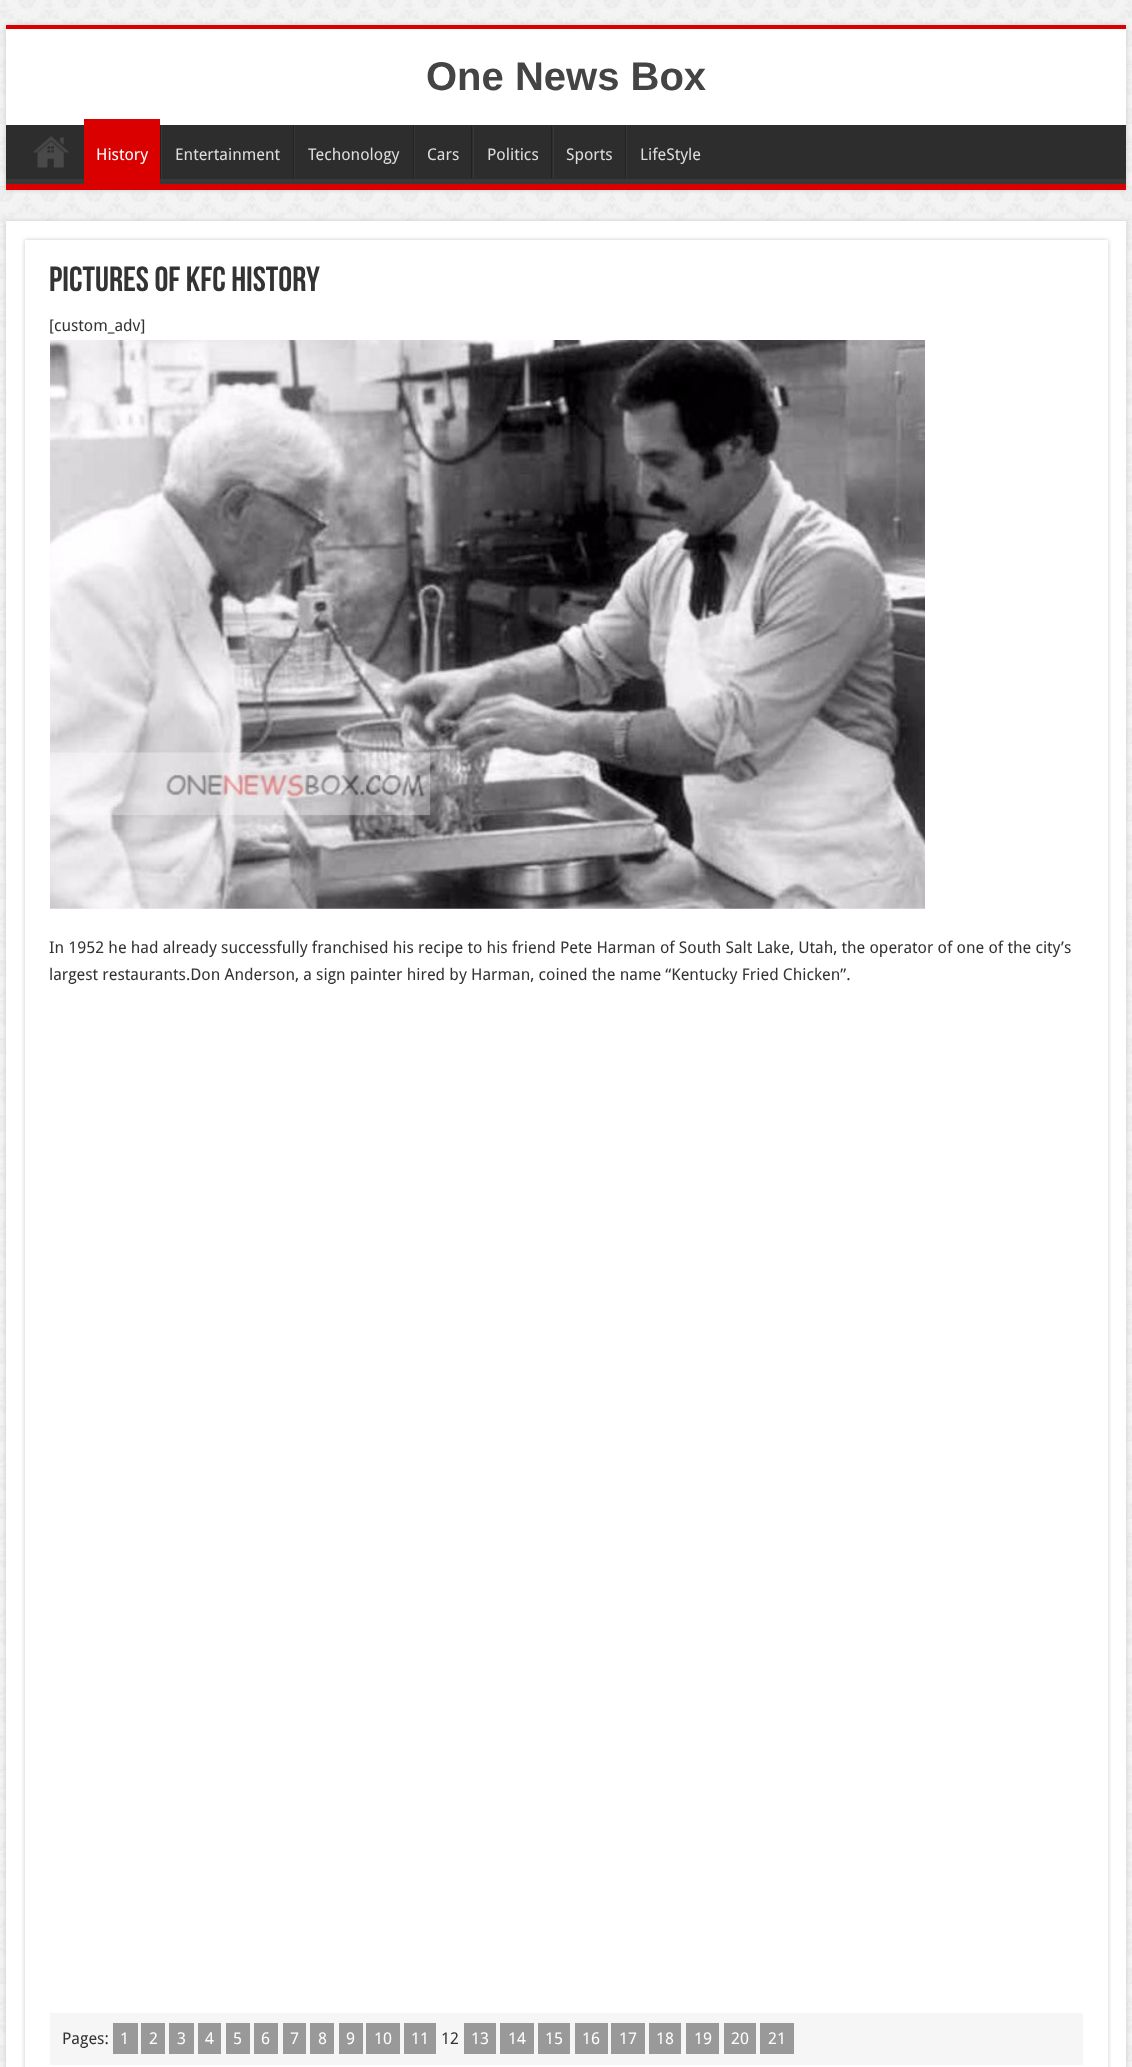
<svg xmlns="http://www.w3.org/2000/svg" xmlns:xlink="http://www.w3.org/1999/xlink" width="1132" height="2067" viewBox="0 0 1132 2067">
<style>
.cls-1{font:bold 40px Liberation Sans;fill:#444444}
.cls-2{font:16.25px Droid Sans;fill:#ffffff}
.cls-3{font:16.25px Droid Sans;fill:#dddddd}
.cls-4{font:bold 35px Bebas Neue;fill:#333333}
.cls-5{font:16.25px Droid Sans;fill:#333333}
</style>
<defs>
<clipPath id="clip1"><rect x="6" y="125" width="1120" height="59"/></clipPath>
</defs>
<rect width="100%" height="100%" fill="#ffffff"/>
<image xlink:href="image0.png" x="0" y="0" width="1132" height="2067"/>
<rect fill="#cacaca" filter="blur(2px)" x="6" y="25" width="1120" height="165"/>
<rect fill="#ffffff" x="6" y="29" width="1120" height="96"/>
<rect fill="#db0000" x="6" y="25" width="1120" height="4"/>
<rect fill="#2d2d2d" x="6" y="125" width="1120" height="54"/>
<g clip-path="url(#clip1)">
<path fill="#393939" fill-rule="evenodd" d="M-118 1H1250V308H-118ZM5 118H1125C1126 118 1126 118 1126 119V178C1126 178 1126 179 1125 179H5C4 179 4 178 4 178V119C4 118 4 118 5 118Z"/>
</g>
<rect fill="#db0000" x="6" y="184" width="1120" height="6"/>
<image xlink:href="image1.png" x="33" y="136" width="36" height="32"/>
<rect fill="#db0000" x="84" y="119" width="76" height="65"/>
<rect fill="#222222" x="160" y="125" width="1" height="53"/>
<rect fill="#383838" x="161" y="125" width="1" height="53"/>
<rect fill="#222222" x="293" y="125" width="1" height="53"/>
<rect fill="#383838" x="294" y="125" width="1" height="53"/>
<rect fill="#222222" x="413" y="125" width="1" height="53"/>
<rect fill="#383838" x="414" y="125" width="1" height="53"/>
<rect fill="#222222" x="471" y="125" width="1" height="53"/>
<rect fill="#383838" x="473" y="125" width="1" height="53"/>
<rect fill="#222222" x="551" y="125" width="1" height="53"/>
<rect fill="#383838" x="553" y="125" width="1" height="53"/>
<rect fill="#222222" x="625" y="125" width="1" height="53"/>
<rect fill="#383838" x="626" y="125" width="1" height="53"/>
<rect fill="#cacaca" filter="blur(2px)" x="6" y="221" width="1120" height="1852"/>
<rect fill="#ffffff" x="6" y="221" width="1120" height="1846"/>
<rect fill="#cacaca" filter="blur(2px)" x="25" y="240" width="1083" height="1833"/>
<rect fill="#ffffff" x="25" y="240" width="1083" height="1827"/>
<image xlink:href="image2.png" x="50" y="340" width="875" height="569"/>
<rect fill="#f6f6f6" x="50" y="2013" width="1033" height="52"/>
<rect fill="#999999" x="113" y="2023" width="25" height="31"/>
<rect fill="#999999" x="141" y="2023" width="24" height="31"/>
<rect fill="#999999" x="169" y="2023" width="25" height="31"/>
<rect fill="#999999" x="198" y="2023" width="23" height="31"/>
<rect fill="#999999" x="226" y="2023" width="24" height="31"/>
<rect fill="#999999" x="254" y="2023" width="24" height="31"/>
<rect fill="#999999" x="283" y="2023" width="23" height="31"/>
<rect fill="#999999" x="310" y="2023" width="24" height="31"/>
<rect fill="#999999" x="339" y="2023" width="24" height="31"/>
<rect fill="#999999" x="366" y="2023" width="34" height="31"/>
<rect fill="#999999" x="404" y="2023" width="32" height="31"/>
<rect fill="#999999" x="464" y="2023" width="32" height="31"/>
<rect fill="#999999" x="500" y="2023" width="34" height="31"/>
<rect fill="#999999" x="538" y="2023" width="32" height="31"/>
<rect fill="#999999" x="575" y="2023" width="33" height="31"/>
<rect fill="#999999" x="611" y="2023" width="34" height="31"/>
<rect fill="#999999" x="649" y="2023" width="32" height="31"/>
<rect fill="#999999" x="686" y="2023" width="33" height="31"/>
<rect fill="#999999" x="724" y="2023" width="32" height="31"/>
<rect fill="#999999" x="760" y="2023" width="34" height="31"/>
<text class="cls-1" x="426" y="90">One News Box</text>
<text class="cls-2" x="96" y="160">History</text>
<text class="cls-3" x="175" y="160">Entertainment</text>
<text class="cls-3" x="308" y="160">Techonology</text>
<text class="cls-3" x="427" y="160">Cars</text>
<text class="cls-3" x="487" y="160">Politics</text>
<text class="cls-3" x="566" y="160">Sports</text>
<text class="cls-3" x="640" y="160">LifeStyle</text>
<text class="cls-4" x="49" y="291">Pictures of KFC History</text>
<text class="cls-5" x="49" y="331">[custom_adv]</text>
<text class="cls-5"><tspan x="49" y="953">In 1952 he had already successfully franchised his recipe to his friend Pete Harman of South Salt Lake, Utah, the operator of one of the city’s</tspan><tspan x="49" y="980">largest restaurants.Don Anderson, a sign painter hired by Harman, coined the name “Kentucky Fried Chicken”.</tspan></text>
<text class="cls-5" x="62" y="2044">Pages:</text>
<text class="cls-2" x="120" y="2044">1</text>
<text class="cls-2" x="149" y="2044">2</text>
<text class="cls-2" x="177" y="2044">3</text>
<text class="cls-2" x="205" y="2044">4</text>
<text class="cls-2" x="233" y="2044">5</text>
<text class="cls-2" x="261" y="2044">6</text>
<text class="cls-2" x="290" y="2044">7</text>
<text class="cls-2" x="318" y="2044">8</text>
<text class="cls-2" x="346" y="2044">9</text>
<text class="cls-2" x="374" y="2044">10</text>
<text class="cls-2" x="411" y="2044">11</text>
<text class="cls-5" x="441" y="2044">12</text>
<text class="cls-2" x="471" y="2044">13</text>
<text class="cls-2" x="508" y="2044">14</text>
<text class="cls-2" x="545" y="2044">15</text>
<text class="cls-2" x="582" y="2044">16</text>
<text class="cls-2" x="619" y="2044">17</text>
<text class="cls-2" x="656" y="2044">18</text>
<text class="cls-2" x="694" y="2044">19</text>
<text class="cls-2" x="731" y="2044">20</text>
<text class="cls-2" x="768" y="2044">21</text>
</svg>
